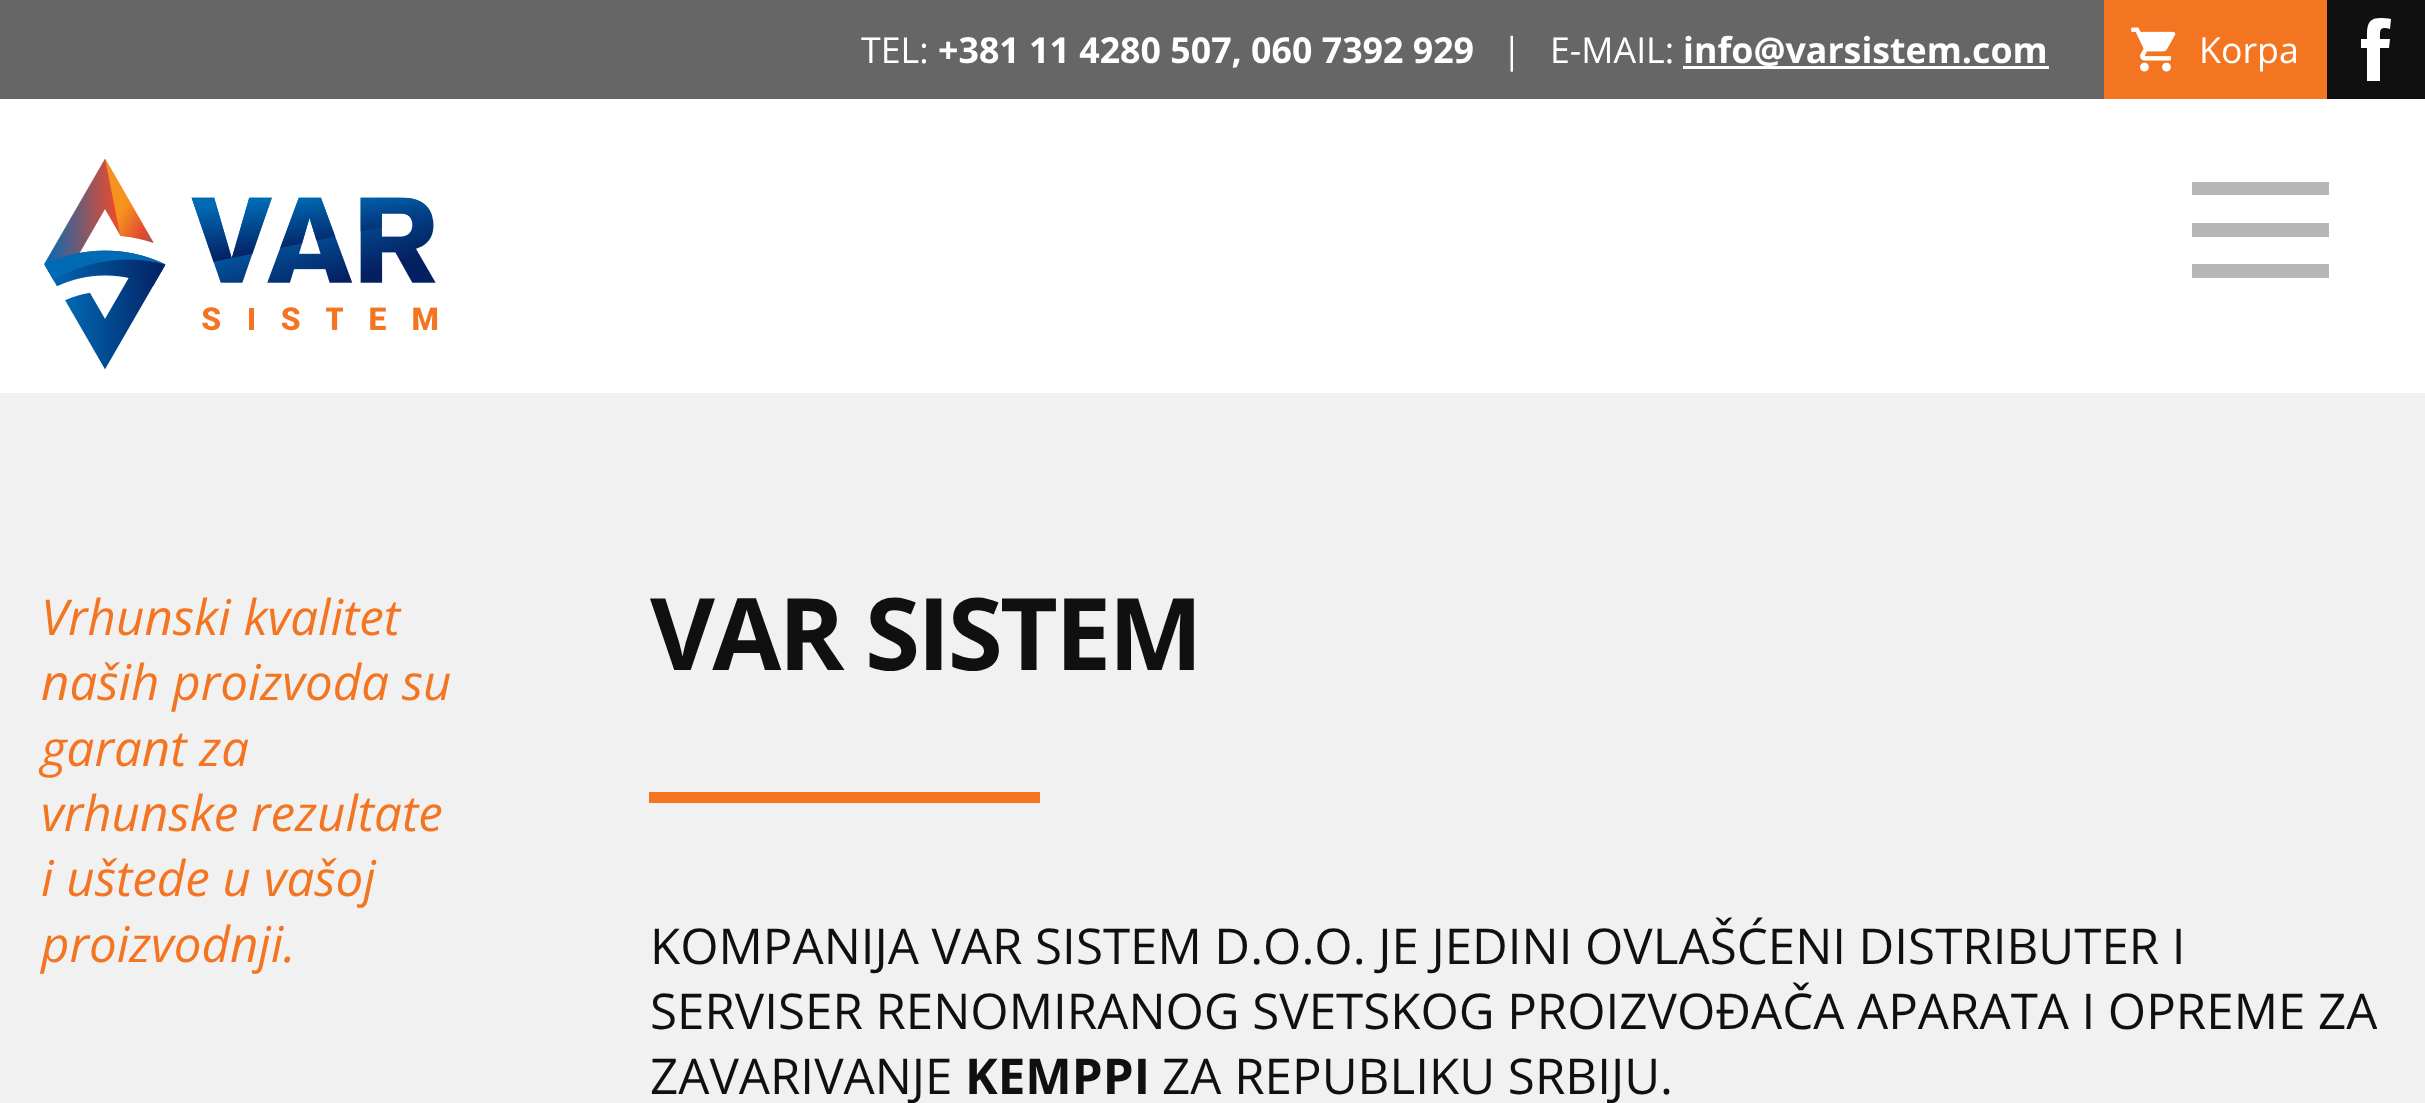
<svg xmlns="http://www.w3.org/2000/svg" xmlns:xlink="http://www.w3.org/1999/xlink" width="2425" height="1103" viewBox="0 0 2425 1103">
<style>
.cls-1{font:35.75px Open Sans;fill:#ffffff}
.cls-2{font:bold 35.75px Open Sans;fill:#ffffff}
.cls-3{font:italic 49.3px Open Sans;fill:#f47521}
.cls-4{font:bold 100px Open Sans;letter-spacing:-2.75px;fill:#101010}
.cls-5{font:49.3px Open Sans;fill:#101010}
.cls-6{font:bold 49.3px Open Sans;fill:#101010}
</style>
<rect width="100%" height="100%" fill="#f1f1f1"/>
<rect fill="#666666" x="0" y="0" width="2104" height="99"/>
<rect fill="#ffffff" x="1683" y="66" width="366" height="3"/>
<rect fill="#f47521" x="2104" y="0" width="223" height="99"/>
<image xlink:href="image0.png" x="2131" y="27" width="45" height="45"/>
<rect fill="#101010" x="2327" y="0" width="98" height="99"/>
<path fill="#ffffff" d="M2361 39H2367C2367 29 2366 18 2380 18C2383 18 2388 18 2391 19L2390 29C2379 26 2380 30 2380 39H2390L2389 48H2380V81H2367V48H2361Z"/>
<rect fill="#ffffff" x="0" y="99" width="2425" height="294"/>
<image xlink:href="image1.png" x="44" y="158" width="394" height="212"/>
<rect fill="#b7b7b7" x="2192" y="182" width="137" height="13"/>
<rect fill="#b7b7b7" x="2192" y="223" width="137" height="14"/>
<rect fill="#b7b7b7" x="2192" y="264" width="137" height="14"/>
<rect fill="#f47521" x="649" y="792" width="391" height="11"/>
<text class="cls-1" x="861" y="63">TEL:</text>
<text class="cls-2" x="938" y="63">+381 11 4280 507, 060 7392 929</text>
<text class="cls-1" x="1502" y="63">|</text>
<text class="cls-1" x="1550" y="63">E-MAIL:</text>
<text class="cls-2" x="1683" y="63">info@varsistem.com</text>
<text class="cls-1" x="2199" y="63">Korpa</text>
<text class="cls-3"><tspan x="41" y="635">Vrhunski kvalitet</tspan><tspan x="41" y="700">naših proizvoda su</tspan><tspan x="41" y="766">garant za</tspan><tspan x="41" y="831">vrhunske rezultate</tspan><tspan x="41" y="896">i uštede u vašoj</tspan><tspan x="41" y="962">proizvodnji.</tspan></text>
<text class="cls-4" x="650" y="670">VAR SISTEM</text>
<text class="cls-5"><tspan x="650" y="964" word-spacing="-0.25">KOMPANIJA VAR SISTEM D.O.O. JE JEDINI OVLAŠĆENI DISTRIBUTER I</tspan><tspan x="650" y="1029" word-spacing="-0.25">SERVISER RENOMIRANOG SVETSKOG PROIZVOĐAČA APARATA I OPREME ZA</tspan><tspan x="650" y="1094">ZAVARIVANJE</tspan></text>
<text class="cls-6" x="965" y="1094">KEMPPI</text>
<text class="cls-5" x="1162" y="1094">ZA REPUBLIKU SRBIJU.</text>
</svg>
